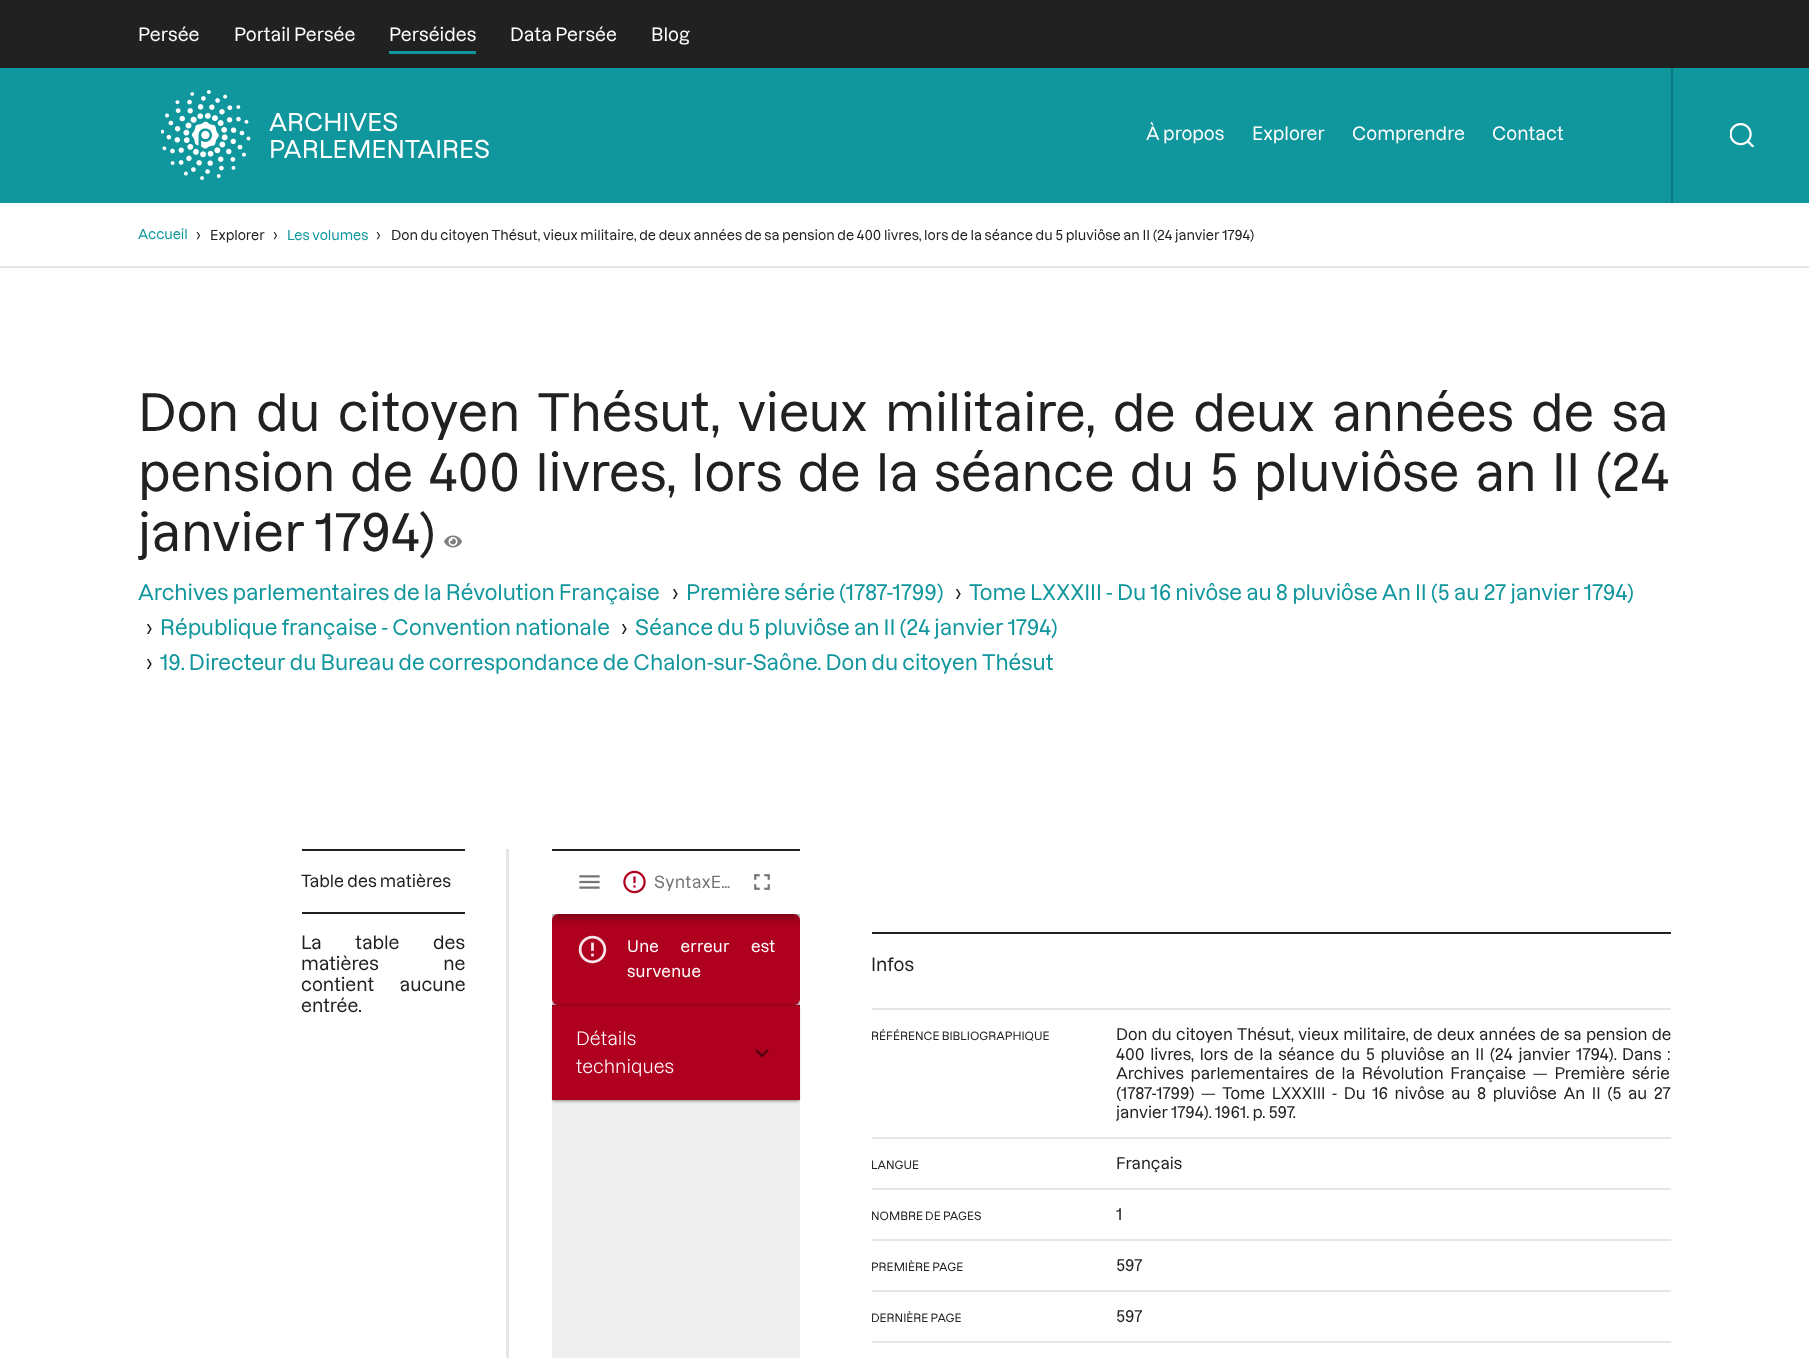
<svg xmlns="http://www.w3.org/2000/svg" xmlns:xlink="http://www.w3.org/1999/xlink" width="1809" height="1358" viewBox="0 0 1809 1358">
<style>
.cls-1{font:500 18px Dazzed;fill:#ffffff}
.cls-2{font:500 24px Dazzed;fill:#ffffff}
.cls-3{font:500 13.5px Dazzed;fill:#10969d}
.cls-4{font:500 15px Dazzed;fill:#212121}
.cls-5{font:500 13.5px Dazzed;fill:#212121}
.cls-6{font:500 50.6px Dazzed;fill:#212121}
.cls-7{font:500 21px Dazzed;fill:#10969d}
.cls-8{font:500 21px Dazzed;fill:#212121}
.cls-9{font:500 16.5px Dazzed;fill:#212121}
.cls-10{font:500 18px Dazzed;fill:#212121}
.cls-11{font:500 16.5px Dazzed;letter-spacing:0.25px;fill:#757575}
.cls-12{font:500 15.75px Dazzed;letter-spacing:0.25px;fill:#ffffff}
.cls-13{font:18px Dazzed;fill:#ffffff}
.cls-14{font:500 11.25px Dazzed;fill:#212121}
.cls-15{font:500 15.75px Dazzed;fill:#212121}
</style>
<defs>
<clipPath id="clip1"><rect x="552" y="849" width="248" height="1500"/></clipPath>
</defs>
<rect width="100%" height="100%" fill="#ffffff"/>
<rect fill="#212121" x="0" y="0" width="1809" height="68"/>
<rect fill="#10969d" x="389" y="51" width="87" height="3"/>
<rect fill="#10969d" x="0" y="68" width="1809" height="135"/>
<image xlink:href="image0.png" x="161" y="90" width="90" height="90"/>
<rect fill="#0d787e" x="1671" y="68" width="2" height="135"/>
<image xlink:href="image1.png" x="1730" y="123" width="24" height="24"/>
<rect fill="#e6e6e6" x="0" y="266" width="1809" height="2"/>
<image xlink:href="image2.png" x="444" y="535" width="18" height="13"/>
<rect fill="#212121" x="302" y="849" width="163" height="2"/>
<rect fill="#212121" x="302" y="912" width="163" height="2"/>
<rect fill="#e6e6e6" x="506" y="849" width="3" height="509"/>
<rect fill="#eeeeee" x="552" y="914" width="248" height="444"/>
<g clip-path="url(#clip1)">
<rect fill="#000000" fill-opacity="0.12" filter="blur(13.5px)" x="552" y="915" width="248" height="92" rx="6"/>
<rect fill="#000000" fill-opacity="0.14" filter="blur(7.5px)" x="552" y="923" width="248" height="91" rx="6"/>
<rect fill="#000000" fill-opacity="0.2" filter="blur(4px)" x="554" y="920" width="244" height="88" rx="5"/>
</g>
<rect fill="#b00020" x="552" y="914" width="248" height="91" rx="6"/>
<image xlink:href="image6.png" x="578" y="935" width="29" height="29"/>
<g clip-path="url(#clip1)">
<rect fill="#000000" fill-opacity="0.12" filter="blur(7.5px)" x="552" y="851" width="248" height="64"/>
<rect fill="#000000" fill-opacity="0.14" filter="blur(4px)" x="552" y="855" width="248" height="65"/>
<rect fill="#000000" fill-opacity="0.2" filter="blur(3px)" x="554" y="854" width="244" height="61"/>
</g>
<rect fill="#ffffff" x="552" y="851" width="248" height="63"/>
<rect fill="#212121" x="552" y="849" width="248" height="2"/>
<image xlink:href="image3.png" x="579" y="875" width="21" height="14"/>
<image xlink:href="image4.png" x="623" y="870" width="23" height="24"/>
<image xlink:href="image5.png" x="754" y="874" width="16" height="16"/>
<g clip-path="url(#clip1)">
<rect fill="#000000" fill-opacity="0.12" filter="blur(2px)" x="552" y="1007" width="248" height="94"/>
</g>
<rect fill="#000000" fill-opacity="0.14" filter="blur(1px)" x="552" y="1007" width="248" height="94"/>
<rect fill="#000000" fill-opacity="0.2" filter="blur(1px)" x="554" y="1010" width="244" height="91"/>
<rect fill="#b00020" x="552" y="1005" width="248" height="95"/>
<rect fill="#000000" fill-opacity="0.12" x="552" y="1004" width="248" height="2"/>
<image xlink:href="image7.png" x="755" y="1049" width="14" height="9"/>
<rect fill="#212121" x="872" y="932" width="799" height="2"/>
<rect fill="#e6e6e6" x="872" y="1008" width="799" height="2"/>
<rect fill="#e6e6e6" x="872" y="1137" width="799" height="2"/>
<rect fill="#e6e6e6" x="872" y="1188" width="799" height="2"/>
<rect fill="#e6e6e6" x="872" y="1239" width="799" height="2"/>
<rect fill="#e6e6e6" x="872" y="1290" width="799" height="2"/>
<rect fill="#e6e6e6" x="872" y="1341" width="799" height="2"/>
<text class="cls-1" x="138" y="41">Persée</text>
<text class="cls-1" x="234" y="41">Portail Persée</text>
<text class="cls-1" x="389" y="41">Perséides</text>
<text class="cls-1" x="510" y="41">Data Persée</text>
<text class="cls-1" x="651" y="41">Blog</text>
<text class="cls-2"><tspan x="269" y="131">ARCHIVES</tspan><tspan x="269" y="158">PARLEMENTAIRES</tspan></text>
<text class="cls-1" x="1146" y="140">À propos</text>
<text class="cls-1" x="1252" y="140">Explorer</text>
<text class="cls-1" x="1352" y="140">Comprendre</text>
<text class="cls-1" x="1492" y="140">Contact</text>
<text class="cls-3" x="138" y="239">Accueil</text>
<text class="cls-4" x="196" y="240">›</text>
<text class="cls-5" x="210" y="240">Explorer</text>
<text class="cls-4" x="273" y="240">›</text>
<text class="cls-3" x="287" y="240">Les volumes</text>
<text class="cls-4" x="376" y="240">›</text>
<text class="cls-5" x="391" y="240">Don du citoyen Thésut, vieux militaire, de deux années de sa pension de 400 livres, lors de la séance du 5 pluviôse an II (24 janvier 1794)</text>
<text class="cls-6"><tspan x="138" y="431" word-spacing="7.5">Don du citoyen Thésut, vieux militaire, de deux années de sa</tspan><tspan x="138" y="491" word-spacing="5.25">pension de 400 livres, lors de la séance du 5 pluviôse an II (24</tspan><tspan x="138" y="551">janvier 1794)</tspan></text>
<text class="cls-7" x="138" y="600">Archives parlementaires de la Révolution Française</text>
<text class="cls-8" x="672" y="600">›</text>
<text class="cls-7" x="686" y="600">Première série (1787-1799)</text>
<text class="cls-8" x="955" y="600">›</text>
<text class="cls-7" x="969" y="600">Tome LXXXIII - Du 16 nivôse au 8 pluviôse An II (5 au 27 janvier 1794)</text>
<text class="cls-8" x="146" y="635">›</text>
<text class="cls-7" x="160" y="635">République française - Convention nationale</text>
<text class="cls-8" x="621" y="635">›</text>
<text class="cls-7" x="635" y="635">Séance du 5 pluviôse an II (24 janvier 1794)</text>
<text class="cls-8" x="146" y="670">›</text>
<text class="cls-7" x="160" y="670">19. Directeur du Bureau de correspondance de Chalon-sur-Saône. Don du citoyen Thésut</text>
<text class="cls-9" x="301" y="887">Table des matières</text>
<text class="cls-10"><tspan x="301" y="949" word-spacing="30">La table des</tspan><tspan x="301" y="970" word-spacing="61">matières ne</tspan><tspan x="301" y="991" word-spacing="22">contient aucune</tspan><tspan x="301" y="1012">entrée.</tspan></text>
<text class="cls-11" x="654" y="888">SyntaxE…</text>
<text class="cls-12"><tspan x="627" y="952" word-spacing="18">Une erreur est</tspan><tspan x="627" y="977">survenue</tspan></text>
<text class="cls-13"><tspan x="576" y="1045">Détails</tspan><tspan x="576" y="1073">techniques</tspan></text>
<text class="cls-10" x="871" y="971">Infos</text>
<text class="cls-14" x="871" y="1040">RÉFÉRENCE BIBLIOGRAPHIQUE</text>
<text class="cls-15"><tspan x="1116" y="1040" word-spacing="1.25">Don du citoyen Thésut, vieux militaire, de deux années de sa pension de</tspan><tspan x="1116" y="1060" word-spacing="2.6">400 livres, lors de la séance du 5 pluviôse an II (24 janvier 1794).</tspan></text>
<text class="cls-15" x="1622" y="1060" word-spacing="2.6">Dans :</text>
<text class="cls-15"><tspan x="1116" y="1079" word-spacing="3.75">Archives parlementaires de la Révolution Française — Première série</tspan><tspan x="1116" y="1099">(1787-1799)</tspan></text>
<text class="cls-15" x="1201" y="1099" word-spacing="3.5">— Tome LXXXIII - Du 16 nivôse au 8 pluviôse An II (5 au 27</text>
<text class="cls-15" x="1116" y="1118">janvier 1794). 1961. p. 597.</text>
<text class="cls-14" x="871" y="1169">LANGUE</text>
<text class="cls-15" x="1116" y="1169">Français</text>
<text class="cls-14" x="871" y="1220">NOMBRE DE PAGES</text>
<text class="cls-15" x="1116" y="1220">1</text>
<text class="cls-14" x="871" y="1271">PREMIÈRE PAGE</text>
<text class="cls-15" x="1116" y="1271">597</text>
<text class="cls-14" x="871" y="1322">DERNIÈRE PAGE</text>
<text class="cls-15" x="1116" y="1322">597</text>
</svg>
